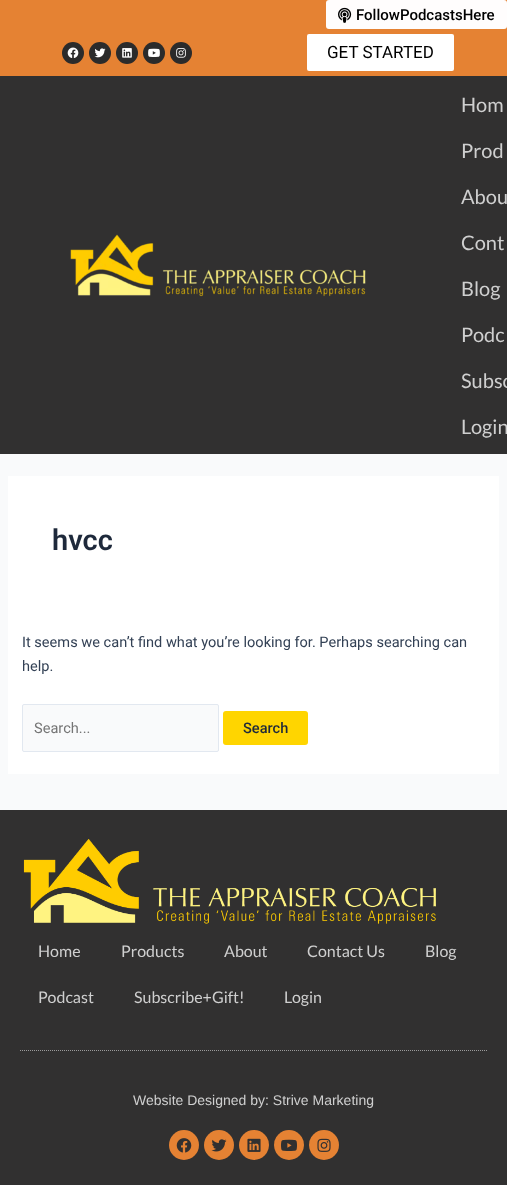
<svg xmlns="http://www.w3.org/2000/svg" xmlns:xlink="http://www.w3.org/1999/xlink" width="507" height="1185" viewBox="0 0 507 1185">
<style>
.cls-1{font:500 15px Roboto;fill:#000000}
.cls-2{font:17px Roboto;fill:#000000}
.cls-3{font:20px Lato;fill:#cfcfcf}
.cls-4{font:600 29px Roboto;fill:#1e293b}
.cls-5{font:14.6px Roboto;fill:#334155}
.cls-6{font:14.6px Roboto;fill:#757575}
.cls-7{font:500 14.6px Roboto;fill:#1e293b}
.cls-8{font:16px Lato;fill:#cfcfcf}
.cls-9{font:14px Liberation Sans;fill:#cfcfcf}
</style>
<rect width="100%" height="100%" fill="#f9fafb"/>
<rect fill="#e58233" x="0" y="0" width="507" height="76"/>
<rect fill="#fffdfd" x="326" y="0" width="181" height="29" rx="3"/>
<image xlink:href="image0.png" x="338" y="7" width="14" height="16"/>
<circle fill="#2b2b2b" cx="73" cy="53" r="11"/>
<image xlink:href="image1.png" x="67" y="47" width="12" height="11"/>
<circle fill="#2b2b2b" cx="100" cy="53" r="11"/>
<image xlink:href="image2.png" x="94" y="48" width="12" height="10"/>
<circle fill="#2b2b2b" cx="127" cy="53" r="11"/>
<image xlink:href="image3.png" x="122" y="48" width="10" height="10"/>
<circle fill="#2b2b2b" cx="154" cy="53" r="11"/>
<image xlink:href="image4.png" x="148" y="48" width="12" height="9"/>
<circle fill="#2b2b2b" cx="181" cy="53" r="11"/>
<image xlink:href="image5.png" x="176" y="48" width="10" height="10"/>
<rect fill="#ffffff" x="307" y="34" width="147" height="37" rx="2"/>
<rect fill="#313030" x="0" y="76" width="507" height="378"/>
<image xlink:href="image6.png" x="70" y="234" width="296" height="63"/>
<rect fill="#ffffff" x="8" y="476" width="491" height="298"/>
<rect fill="#f9fafb" stroke="#e2e8f0" x="22.5" y="704.5" width="196" height="47" rx="1.5"/>
<rect fill="#ffd500" x="223" y="711" width="85" height="34" rx="3"/>
<rect fill="#313030" x="0" y="810" width="507" height="375"/>
<path fill="none" stroke="#9b9b9b" stroke-dasharray="1 1" d="M20 1050.5H487"/>
<image xlink:href="image7.png" x="23" y="839" width="413" height="85"/>
<circle fill="#e58233" cx="184" cy="1145" r="15"/>
<image xlink:href="image8.png" x="176" y="1138" width="16" height="15"/>
<circle fill="#e58233" cx="219" cy="1145" r="15"/>
<image xlink:href="image9.png" x="211" y="1139" width="16" height="13"/>
<circle fill="#e58233" cx="254" cy="1145" r="15"/>
<image xlink:href="image10.png" x="247" y="1138" width="14" height="14"/>
<circle fill="#e58233" cx="289" cy="1145" r="15"/>
<image xlink:href="image11.png" x="281" y="1139" width="16" height="12"/>
<circle fill="#e58233" cx="324" cy="1145" r="15"/>
<image xlink:href="image12.png" x="317" y="1138" width="14" height="14"/>
<text class="cls-1" x="356" y="20">FollowPodcastsHere</text>
<text class="cls-2" x="327" y="58">GET STARTED</text>
<text class="cls-3" x="461" y="112">Hom</text>
<text class="cls-3" x="461" y="158">Prod</text>
<text class="cls-3" x="461" y="204">Abou</text>
<text class="cls-3" x="461" y="250">Cont</text>
<text class="cls-3" x="461" y="296">Blog</text>
<text class="cls-3" x="461" y="342">Podc</text>
<text class="cls-3" x="461" y="388">Subsc</text>
<text class="cls-3" x="461" y="434">Login</text>
<text class="cls-4" x="52" y="550">hvcc</text>
<text class="cls-5"><tspan x="22" y="647">It seems we can’t find what you’re looking for. Perhaps searching can</tspan><tspan x="22" y="671">help.</tspan></text>
<text class="cls-6" x="34" y="733">Search...</text>
<text class="cls-7" x="243" y="733">Search</text>
<text class="cls-8" x="38" y="957">Home</text>
<text class="cls-8" x="121" y="957">Products</text>
<text class="cls-8" x="224" y="957">About</text>
<text class="cls-8" x="307" y="957">Contact Us</text>
<text class="cls-8" x="425" y="957">Blog</text>
<text class="cls-8" x="38" y="1003">Podcast</text>
<text class="cls-8" x="134" y="1003">Subscribe+Gift!</text>
<text class="cls-8" x="284" y="1003">Login</text>
<text class="cls-9" x="133" y="1105">Website Designed by: Strive Marketing</text>
</svg>
